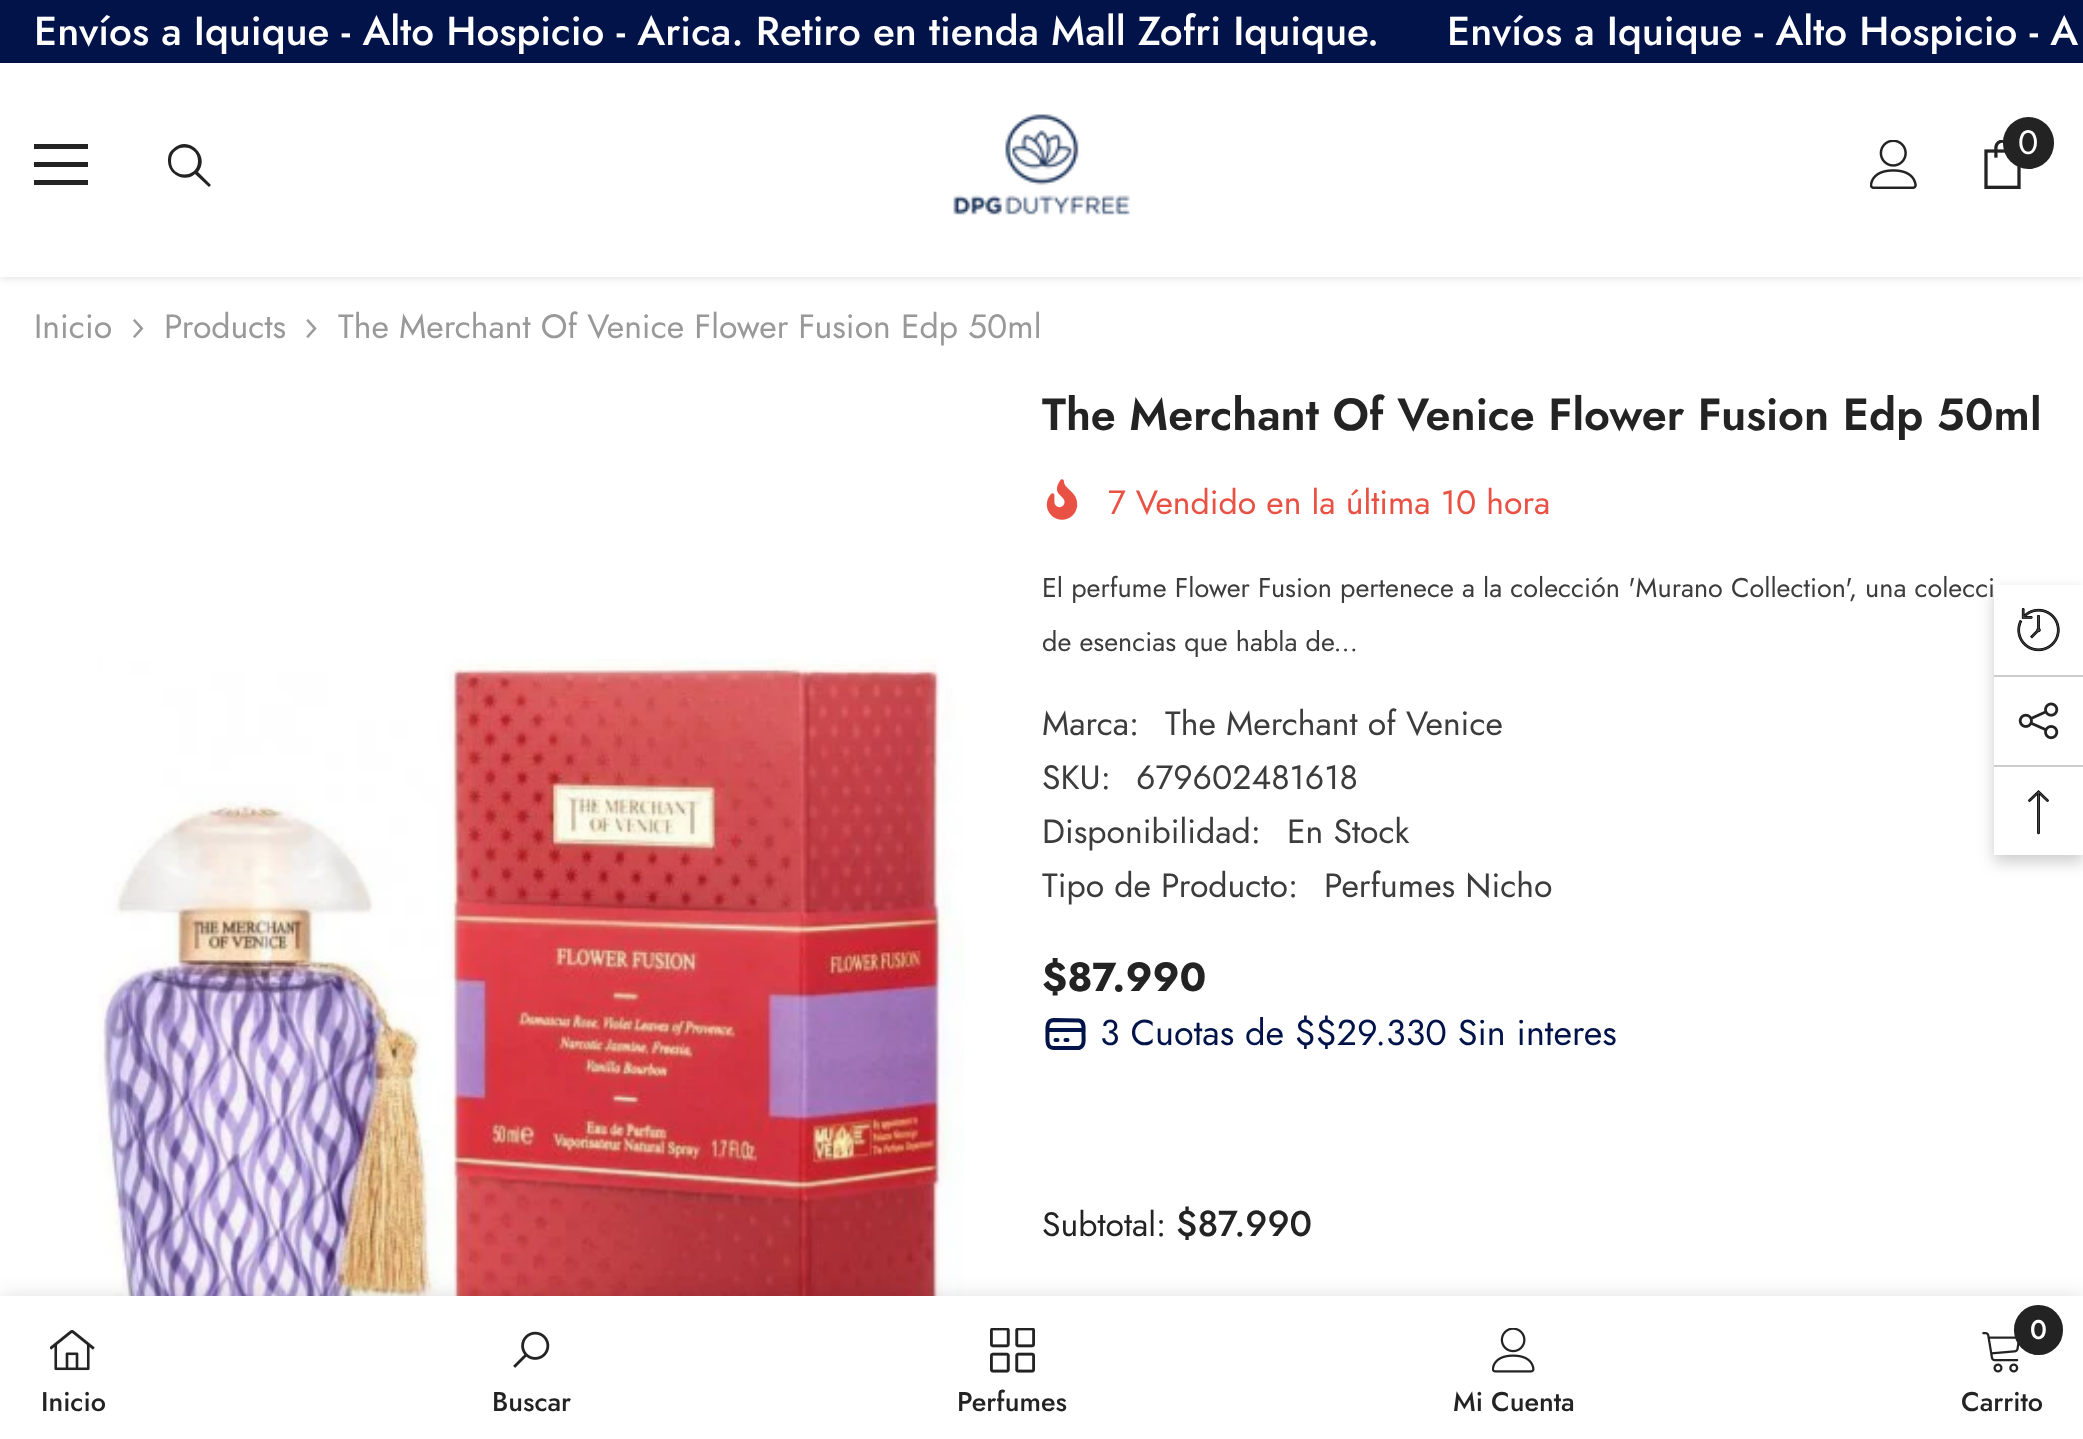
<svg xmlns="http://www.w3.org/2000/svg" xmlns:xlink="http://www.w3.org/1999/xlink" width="2083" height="1439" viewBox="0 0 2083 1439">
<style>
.cls-1{font:500 40.5px Jost;fill:#ffffff}
.cls-2{font:33.75px Jost;fill:#ffffff}
.cls-3{font:33.75px Jost;fill:#999999}
.cls-4{font:600 45px Jost;fill:#232323}
.cls-5{font:33.75px Jost;fill:#e95144}
.cls-6{font:27px Jost;fill:#3c3c3c}
.cls-7{font:33.75px Jost;fill:#3c3c3c}
.cls-8{font:bold 40.5px Jost;fill:#232323}
.cls-9{font:36px Jost;fill:#02134a}
.cls-10{font:33.75px Jost;fill:#232323}
.cls-11{font:500 36px Jost;fill:#232323}
.cls-12{font:500 27px Jost;fill:#232323}
.cls-13{font:500 27px Jost;fill:#ffffff}
</style>
<rect width="100%" height="100%" fill="#ffffff"/>
<rect fill="#02134a" x="0" y="0" width="2083" height="63"/>
<rect fill="#000000" fill-opacity="0.1" filter="blur(3.5px)" x="0" y="65" width="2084" height="214"/>
<rect fill="#ffffff" x="0" y="63" width="2083" height="214"/>
<rect fill="#232323" x="34" y="162" width="54" height="5"/>
<rect fill="#232323" x="34" y="144" width="54" height="5"/>
<rect fill="#232323" x="34" y="180" width="54" height="5"/>
<path fill="#232323" d="M168 161C168 175 185 183 195 174L209 187L211 185L198 172C211 156 188 134 173 149C169 152 168 156 168 161ZM171 161C171 143 198 143 198 161C198 179 171 179 171 161Z"/>
<image xlink:href="image0.png" x="953" y="114" width="177" height="101"/>
<image xlink:href="image1.png" x="1870" y="140" width="47" height="49"/>
<image xlink:href="image2.png" x="1984" y="140" width="37" height="49"/>
<rect fill="#232323" x="2003" y="117" width="51" height="52" rx="25.5"/>
<image xlink:href="image3.png" x="133" y="319" width="11" height="19"/>
<image xlink:href="image4.png" x="306" y="319" width="11" height="19"/>
<image xlink:href="image5.png" x="98" y="659" width="867" height="637"/>
<image xlink:href="image6.png" x="1046" y="479" width="32" height="41"/>
<path fill="none" stroke="#02134a" stroke-width="4" stroke-linecap="round" stroke-linejoin="round" d="M1047.5 1030H1083.5M1055.5 1040H1057.5M1065.5 1040H1067.5M1053.5 1048H1079C1085 1046.5 1083.5 1039 1083.5 1034C1083.5 1029.5 1085 1021.5 1079 1020.5L1053.5 1020C1046 1020.5 1047.5 1029 1047.5 1034C1047.5 1039 1046 1048 1053.5 1048Z"/>
<rect fill="#000000" fill-opacity="0.12" filter="blur(10px)" x="0" y="1296" width="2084" height="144"/>
<rect fill="#ffffff" x="0" y="1296" width="2083" height="143"/>
<image xlink:href="image7.png" x="50" y="1330" width="45" height="41"/>
<image xlink:href="image8.png" x="513" y="1331" width="37" height="37"/>
<image xlink:href="image9.png" x="990" y="1328" width="45" height="45"/>
<image xlink:href="image10.png" x="1492" y="1328" width="43" height="45"/>
<image xlink:href="image11.png" x="1982" y="1332" width="38" height="41"/>
<rect fill="#232323" x="2014" y="1305" width="49" height="50" rx="24.5"/>
<rect fill="#000000" fill-opacity="0.2" filter="blur(8px)" x="1994" y="592" width="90" height="270"/>
<rect fill="#ffffff" x="1994" y="585" width="89" height="270"/>
<image xlink:href="image12.png" x="2017" y="608" width="43" height="44"/>
<rect fill="#cccccc" x="1994" y="675" width="89" height="2"/>
<image xlink:href="image13.png" x="2018" y="702" width="41" height="38"/>
<rect fill="#cccccc" x="1994" y="765" width="89" height="2"/>
<image xlink:href="image14.png" x="2028" y="790" width="21" height="45"/>
<text class="cls-1" x="34" y="45">Envíos a Iquique - Alto Hospicio - Arica. Retiro en tienda Mall Zofri Iquique.</text>
<text class="cls-1" x="1447" y="45">Envíos a Iquique - Alto Hospicio - A</text>
<text class="cls-2" x="2018" y="154">0</text>
<text class="cls-3" x="34" y="338">Inicio</text>
<text class="cls-3" x="164" y="338">Products</text>
<text class="cls-3" x="338" y="338">The Merchant Of Venice Flower Fusion Edp 50ml</text>
<text class="cls-4" x="1042" y="430">The Merchant Of Venice Flower Fusion Edp 50ml</text>
<text class="cls-5" x="1108" y="514">7 Vendido en la última 10 hora</text>
<text class="cls-6" x="1042" y="597">El perfume Flower Fusion pertenece a la colección 'Murano Collection', una colecci</text>
<text class="cls-6" x="1042" y="651">de esencias que habla de...</text>
<text class="cls-7" x="1042" y="735">Marca:</text>
<text class="cls-7" x="1165" y="735">The Merchant of Venice</text>
<text class="cls-7" x="1042" y="789">SKU:</text>
<text class="cls-7" x="1136" y="789">679602481618</text>
<text class="cls-7" x="1042" y="843">Disponibilidad:</text>
<text class="cls-7" x="1287" y="843">En Stock</text>
<text class="cls-7" x="1042" y="897">Tipo de Producto:</text>
<text class="cls-7" x="1324" y="897">Perfumes Nicho</text>
<text class="cls-8" x="1042" y="991">$87.990</text>
<text class="cls-9" x="1100" y="1045">3 Cuotas de $$29.330 Sin interes</text>
<text class="cls-10" x="1042" y="1236">Subtotal:</text>
<text class="cls-11" x="1176" y="1236">$87.990</text>
<text class="cls-12" x="41" y="1411">Inicio</text>
<text class="cls-12" x="492" y="1411">Buscar</text>
<text class="cls-12" x="957" y="1411">Perfumes</text>
<text class="cls-12" x="1453" y="1411">Mi Cuenta</text>
<text class="cls-13" x="2030" y="1339">0</text>
<text class="cls-12" x="1961" y="1411">Carrito</text>
</svg>
